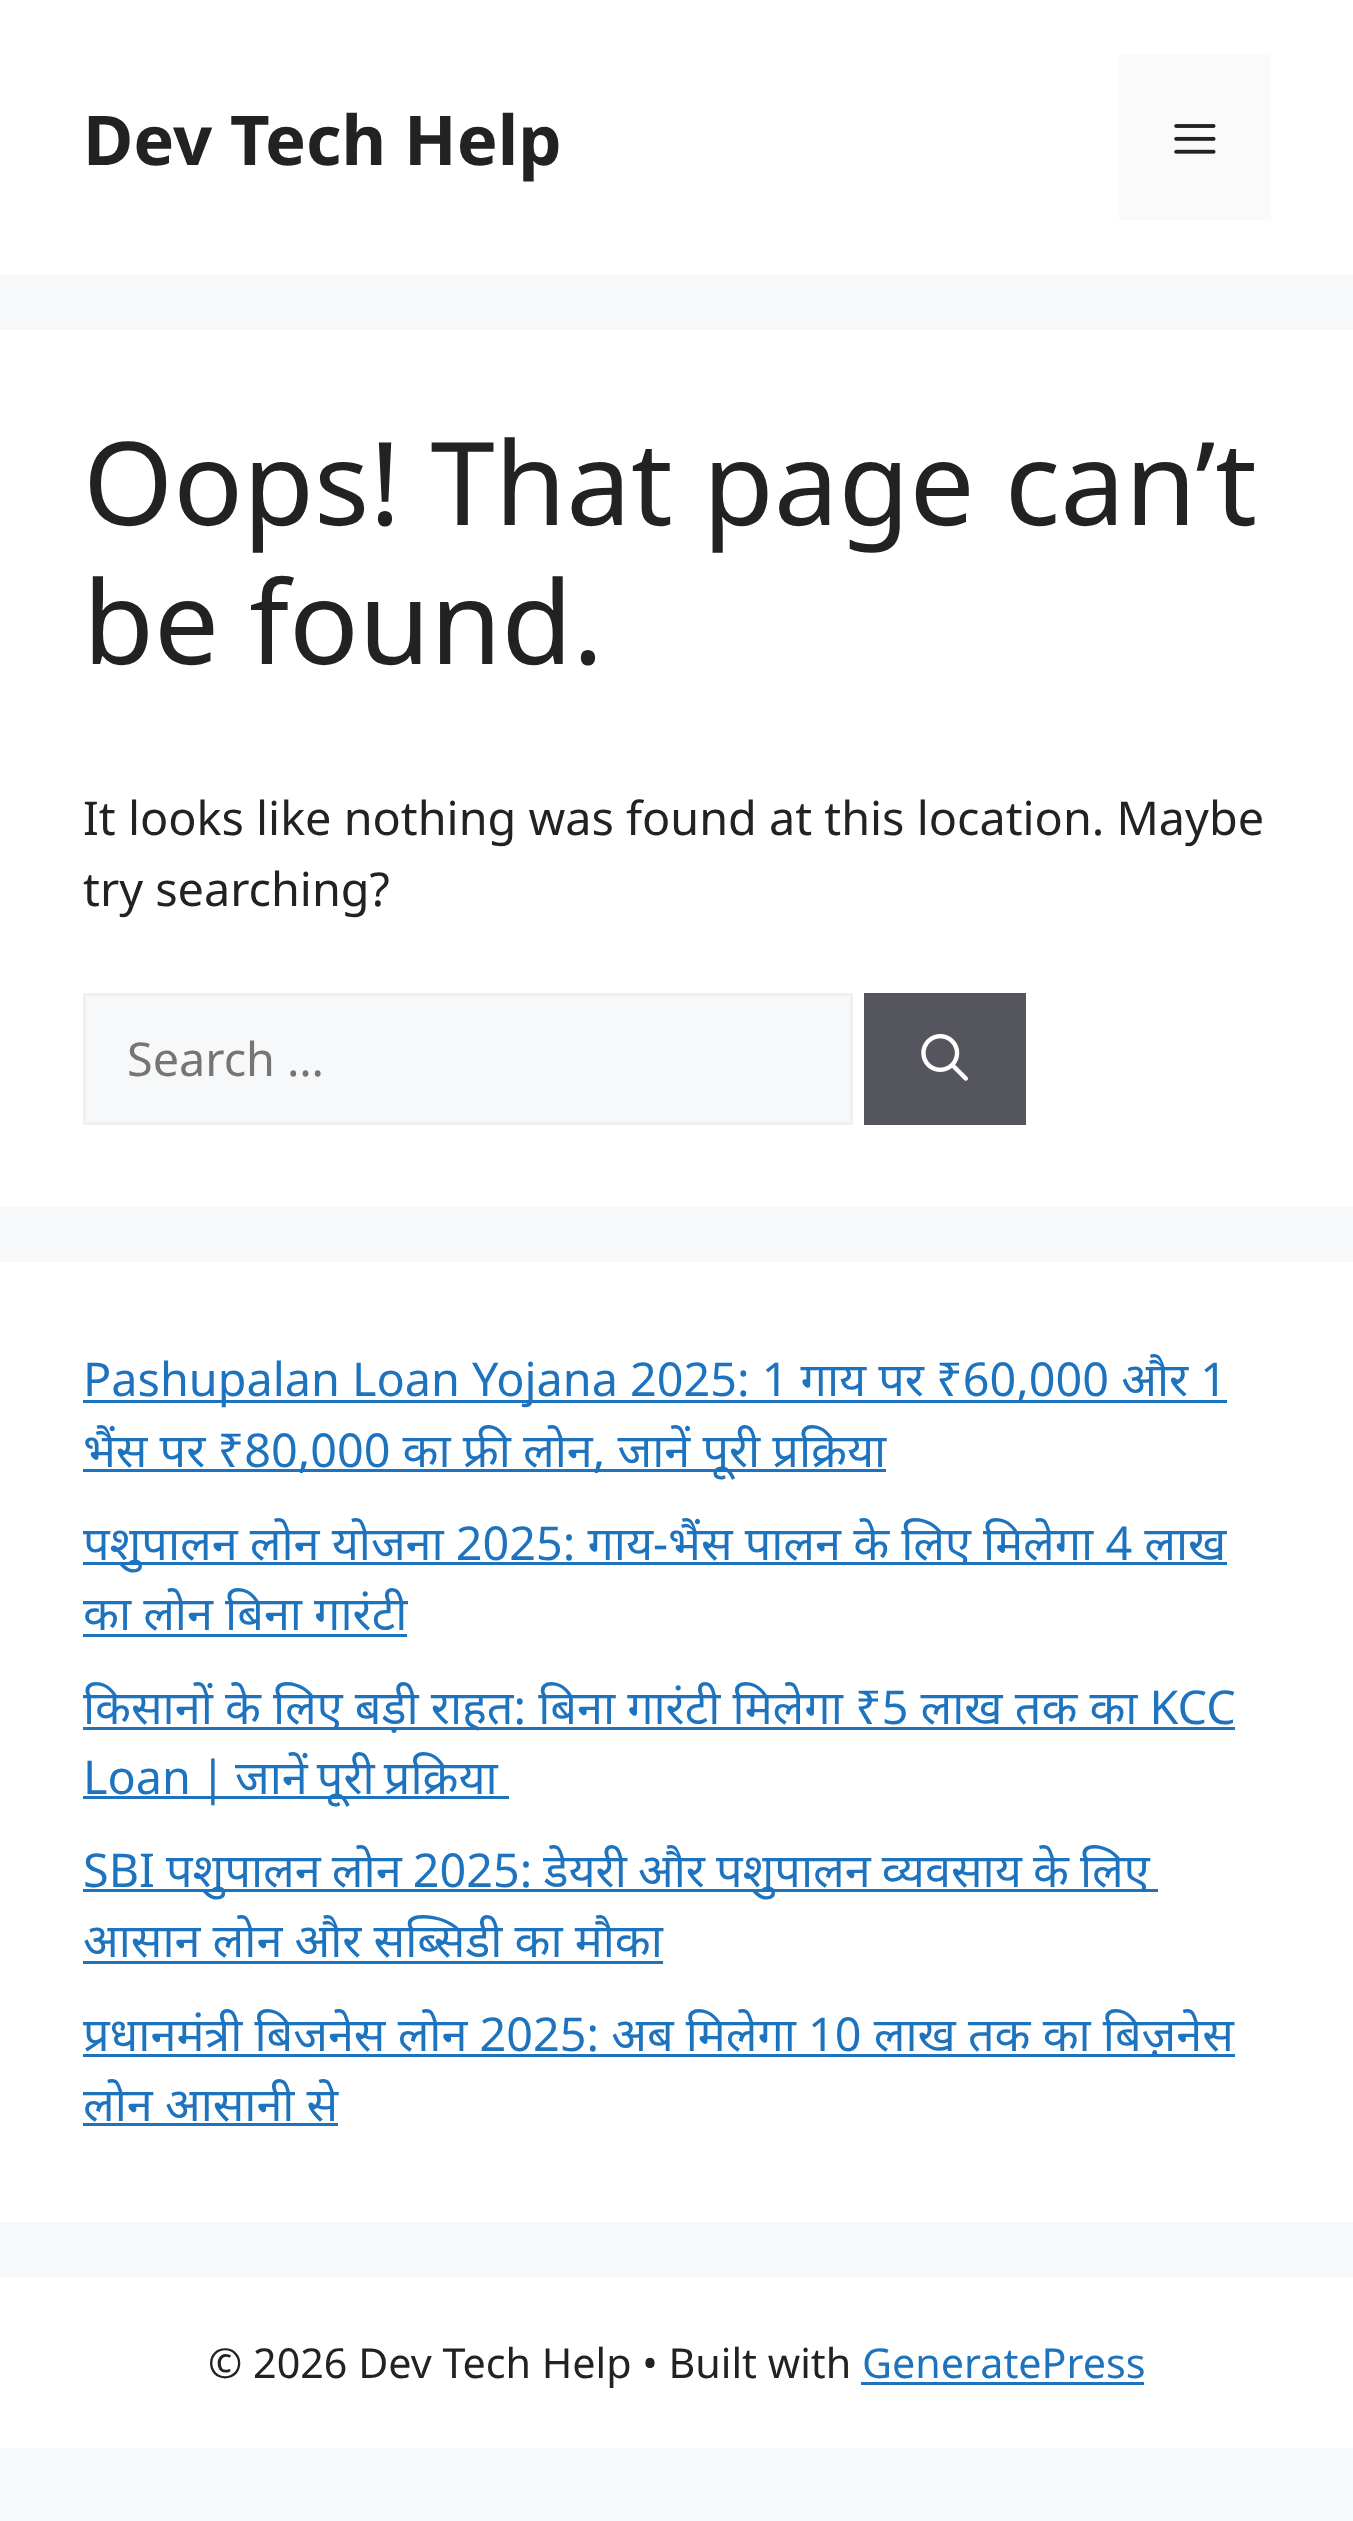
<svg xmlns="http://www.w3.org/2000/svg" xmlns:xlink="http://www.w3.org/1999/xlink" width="1353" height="2521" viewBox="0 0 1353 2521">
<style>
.cls-1{font:bold 68.75px Noto Sans;fill:#222222}
.cls-2{font:115.5px Noto Sans;fill:#222222}
.cls-3{font:46.75px Noto Sans;fill:#222222}
.cls-4{font:46.75px Noto Sans;fill:#757575}
.cls-5{font:46.75px Noto Sans;fill:#1e73be}
.cls-6{font:41.25px Noto Sans;fill:#222222}
.cls-7{font:41.25px Noto Sans;fill:#1e73be}
</style>
<rect width="100%" height="100%" fill="#f7f8f9"/>
<rect fill="#ffffff" x="0" y="0" width="1353" height="275"/>
<rect fill="#fafafa" x="1119" y="55" width="152" height="165"/>
<image xlink:href="image0.png" x="1174" y="124" width="42" height="30"/>
<rect fill="#ffffff" x="0" y="330" width="1353" height="877"/>
<rect fill="#f7f8f9" stroke="#f0f0f0" stroke-width="3" x="84.5" y="994.5" width="767" height="129"/>
<rect fill="#55555e" x="864" y="993" width="162" height="132"/>
<image xlink:href="image1.png" x="921" y="1034" width="47" height="47"/>
<rect fill="#ffffff" x="0" y="1262" width="1353" height="960"/>
<rect fill="#1e73be" x="83" y="1400" width="1144" height="3"/>
<rect fill="#1e73be" x="83" y="1469" width="803" height="3"/>
<rect fill="#1e73be" x="83" y="1562" width="1144" height="3"/>
<rect fill="#1e73be" x="83" y="1634" width="324" height="3"/>
<rect fill="#1e73be" x="83" y="1727" width="1152" height="3"/>
<rect fill="#1e73be" x="83" y="1796" width="426" height="3"/>
<rect fill="#1e73be" x="83" y="1889" width="1075" height="3"/>
<rect fill="#1e73be" x="83" y="1961" width="580" height="3"/>
<rect fill="#1e73be" x="83" y="2054" width="1152" height="3"/>
<rect fill="#1e73be" x="83" y="2123" width="255" height="3"/>
<rect fill="#ffffff" x="0" y="2277" width="1353" height="171"/>
<rect fill="#1e73be" x="861" y="2382" width="283" height="3"/>
<text class="cls-1" x="83" y="165">Dev Tech Help</text>
<text class="cls-2"><tspan x="83" y="525">Oops! That page can’t</tspan><tspan x="83" y="664">be found.</tspan></text>
<text class="cls-3"><tspan x="83" y="835">It looks like nothing was found at this location. Maybe</tspan><tspan x="83" y="906">try searching?</tspan></text>
<text class="cls-4" x="127" y="1076">Search …</text>
<text class="cls-5"><tspan x="83" y="1396">Pashupalan Loan Yojana 2025: 1 गाय पर ₹60,000 और 1</tspan><tspan x="83" y="1467">भैंस पर ₹80,000 का फ्री लोन, जानें पूरी प्रक्रिया</tspan><tspan x="83" y="1560">पशुपालन लोन योजना 2025: गाय-भैंस पालन के लिए मिलेगा 4 लाख</tspan><tspan x="83" y="1630">का लोन बिना गारंटी</tspan></text>
<text class="cls-5"><tspan x="83" y="1724">किसानों के लिए बड़ी राहत: बिना गारंटी मिलेगा ₹5 लाख तक का KCC</tspan><tspan x="83" y="1794" word-spacing="-3">Loan | जानें पूरी प्रक्रिया</tspan><tspan x="83" y="1887" word-spacing="-1">SBI पशुपालन लोन 2025: डेयरी और पशुपालन व्यवसाय के लिए</tspan><tspan x="83" y="1957">आसान लोन और सब्सिडी का मौका</tspan></text>
<text class="cls-5"><tspan x="83" y="2051">प्रधानमंत्री बिजनेस लोन 2025: अब मिलेगा 10 लाख तक का बिज़नेस</tspan><tspan x="83" y="2121">लोन आसानी से</tspan></text>
<text class="cls-6" x="208" y="2378">© 2026 Dev Tech Help • Built with</text>
<text class="cls-7" x="862" y="2378">GeneratePress</text>
</svg>
